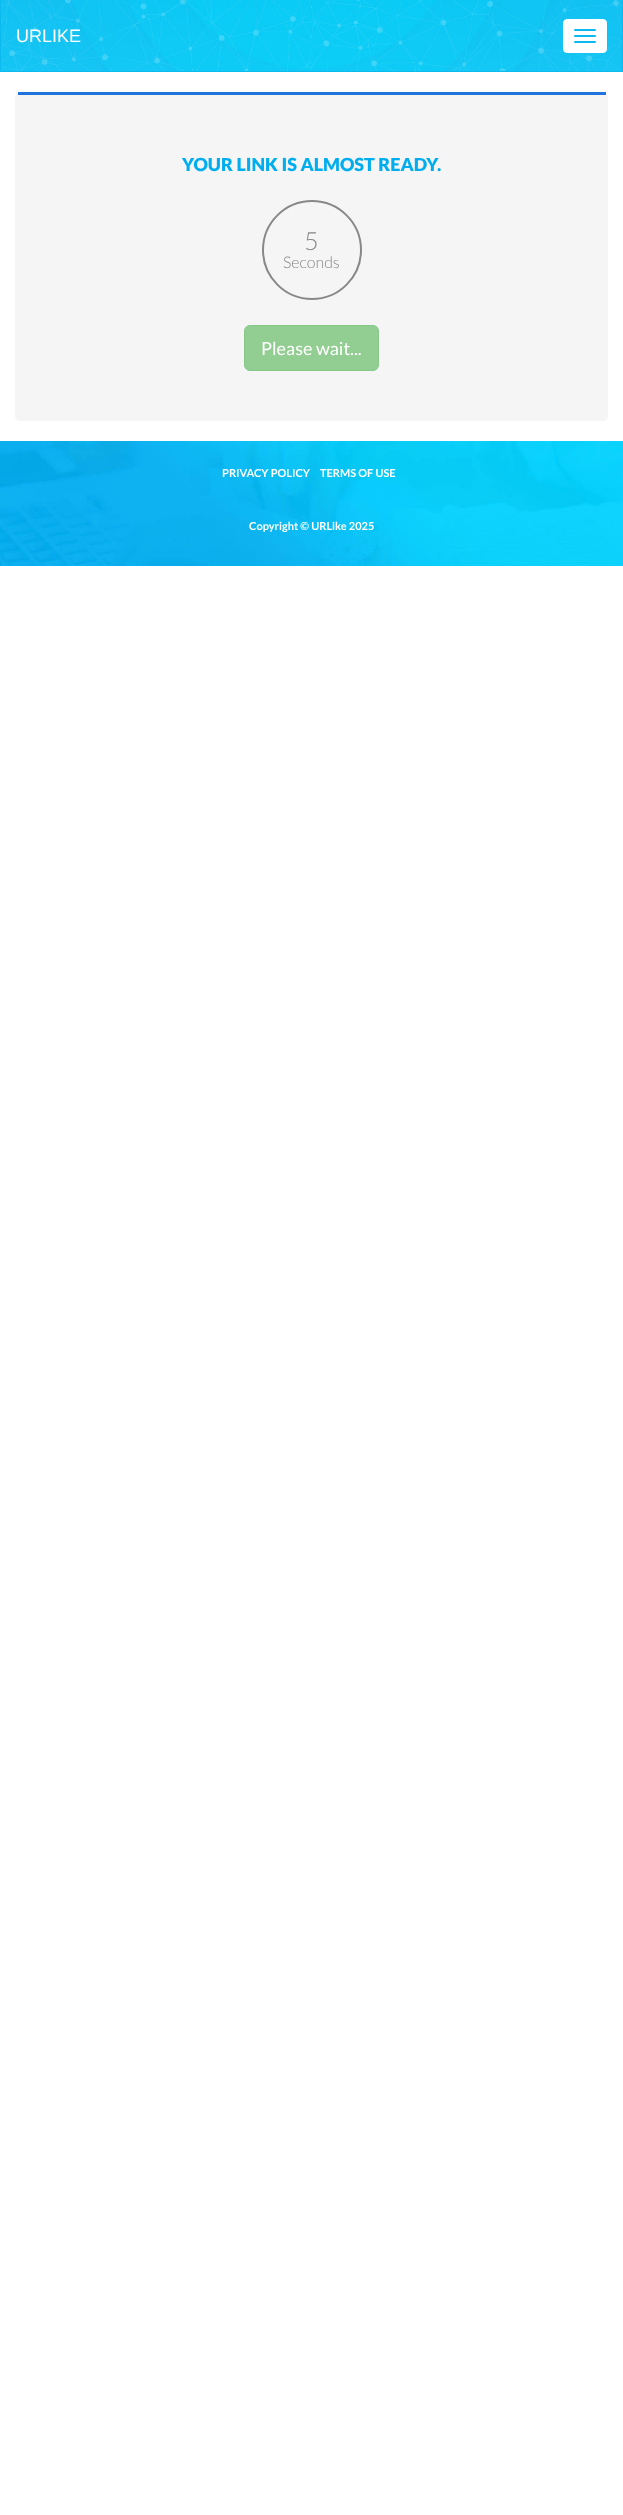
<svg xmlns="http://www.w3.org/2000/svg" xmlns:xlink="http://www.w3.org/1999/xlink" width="623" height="2515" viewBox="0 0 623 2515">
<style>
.cls-1{font:18px Liberation Sans;fill:#ffffff}
.cls-2{font:900 18px Lato;fill:#00aeef}
.cls-3{font:300 25px Lato;fill:#888888}
.cls-4{font:300 16px Lato;fill:#888888}
.cls-5{font:18px Lato;fill:#ffffff}
.cls-6{font:bold 11px Lato;fill:#ffffff}
</style>
<rect width="100%" height="100%" fill="#ffffff"/>
<rect fill="#0dbaf0" x="0" y="0" width="623" height="72"/>
<image xlink:href="image0.png" x="1" y="0" width="621" height="71"/>
<rect fill="#ffffff" stroke="#ffffff" x="563.5" y="19.5" width="43" height="33" rx="3.5"/>
<rect fill="#0dbaf0" x="574" y="29" width="22" height="2" rx="1"/>
<rect fill="#0dbaf0" x="574" y="35" width="22" height="2" rx="1"/>
<rect fill="#0dbaf0" x="574" y="41" width="22" height="2" rx="1"/>
<rect fill="#f5f5f5" x="15" y="92" width="593" height="329" rx="5"/>
<rect fill="#1f74db" x="18" y="92" width="588" height="3"/>
<circle fill="none" stroke="#888888" stroke-width="2" cx="312" cy="250" r="49"/>
<rect fill="#92cd92" stroke="#87c787" x="244.5" y="325.5" width="134" height="45" rx="5.5"/>
<image xlink:href="image1.png" x="0" y="441" width="623" height="125"/>
<text class="cls-1" x="16" y="42">URLIKE</text>
<text class="cls-2" x="182" y="171">YOUR LINK IS ALMOST READY.</text>
<text class="cls-3" x="304" y="250">5</text>
<text class="cls-4" x="283" y="268">Seconds</text>
<text class="cls-5" x="261" y="355">Please wait...</text>
<text class="cls-6" x="222" y="477">PRIVACY POLICY</text>
<text class="cls-6" x="320" y="477">TERMS OF USE</text>
<text class="cls-6" x="249" y="530">Copyright © URLike 2025</text>
</svg>
